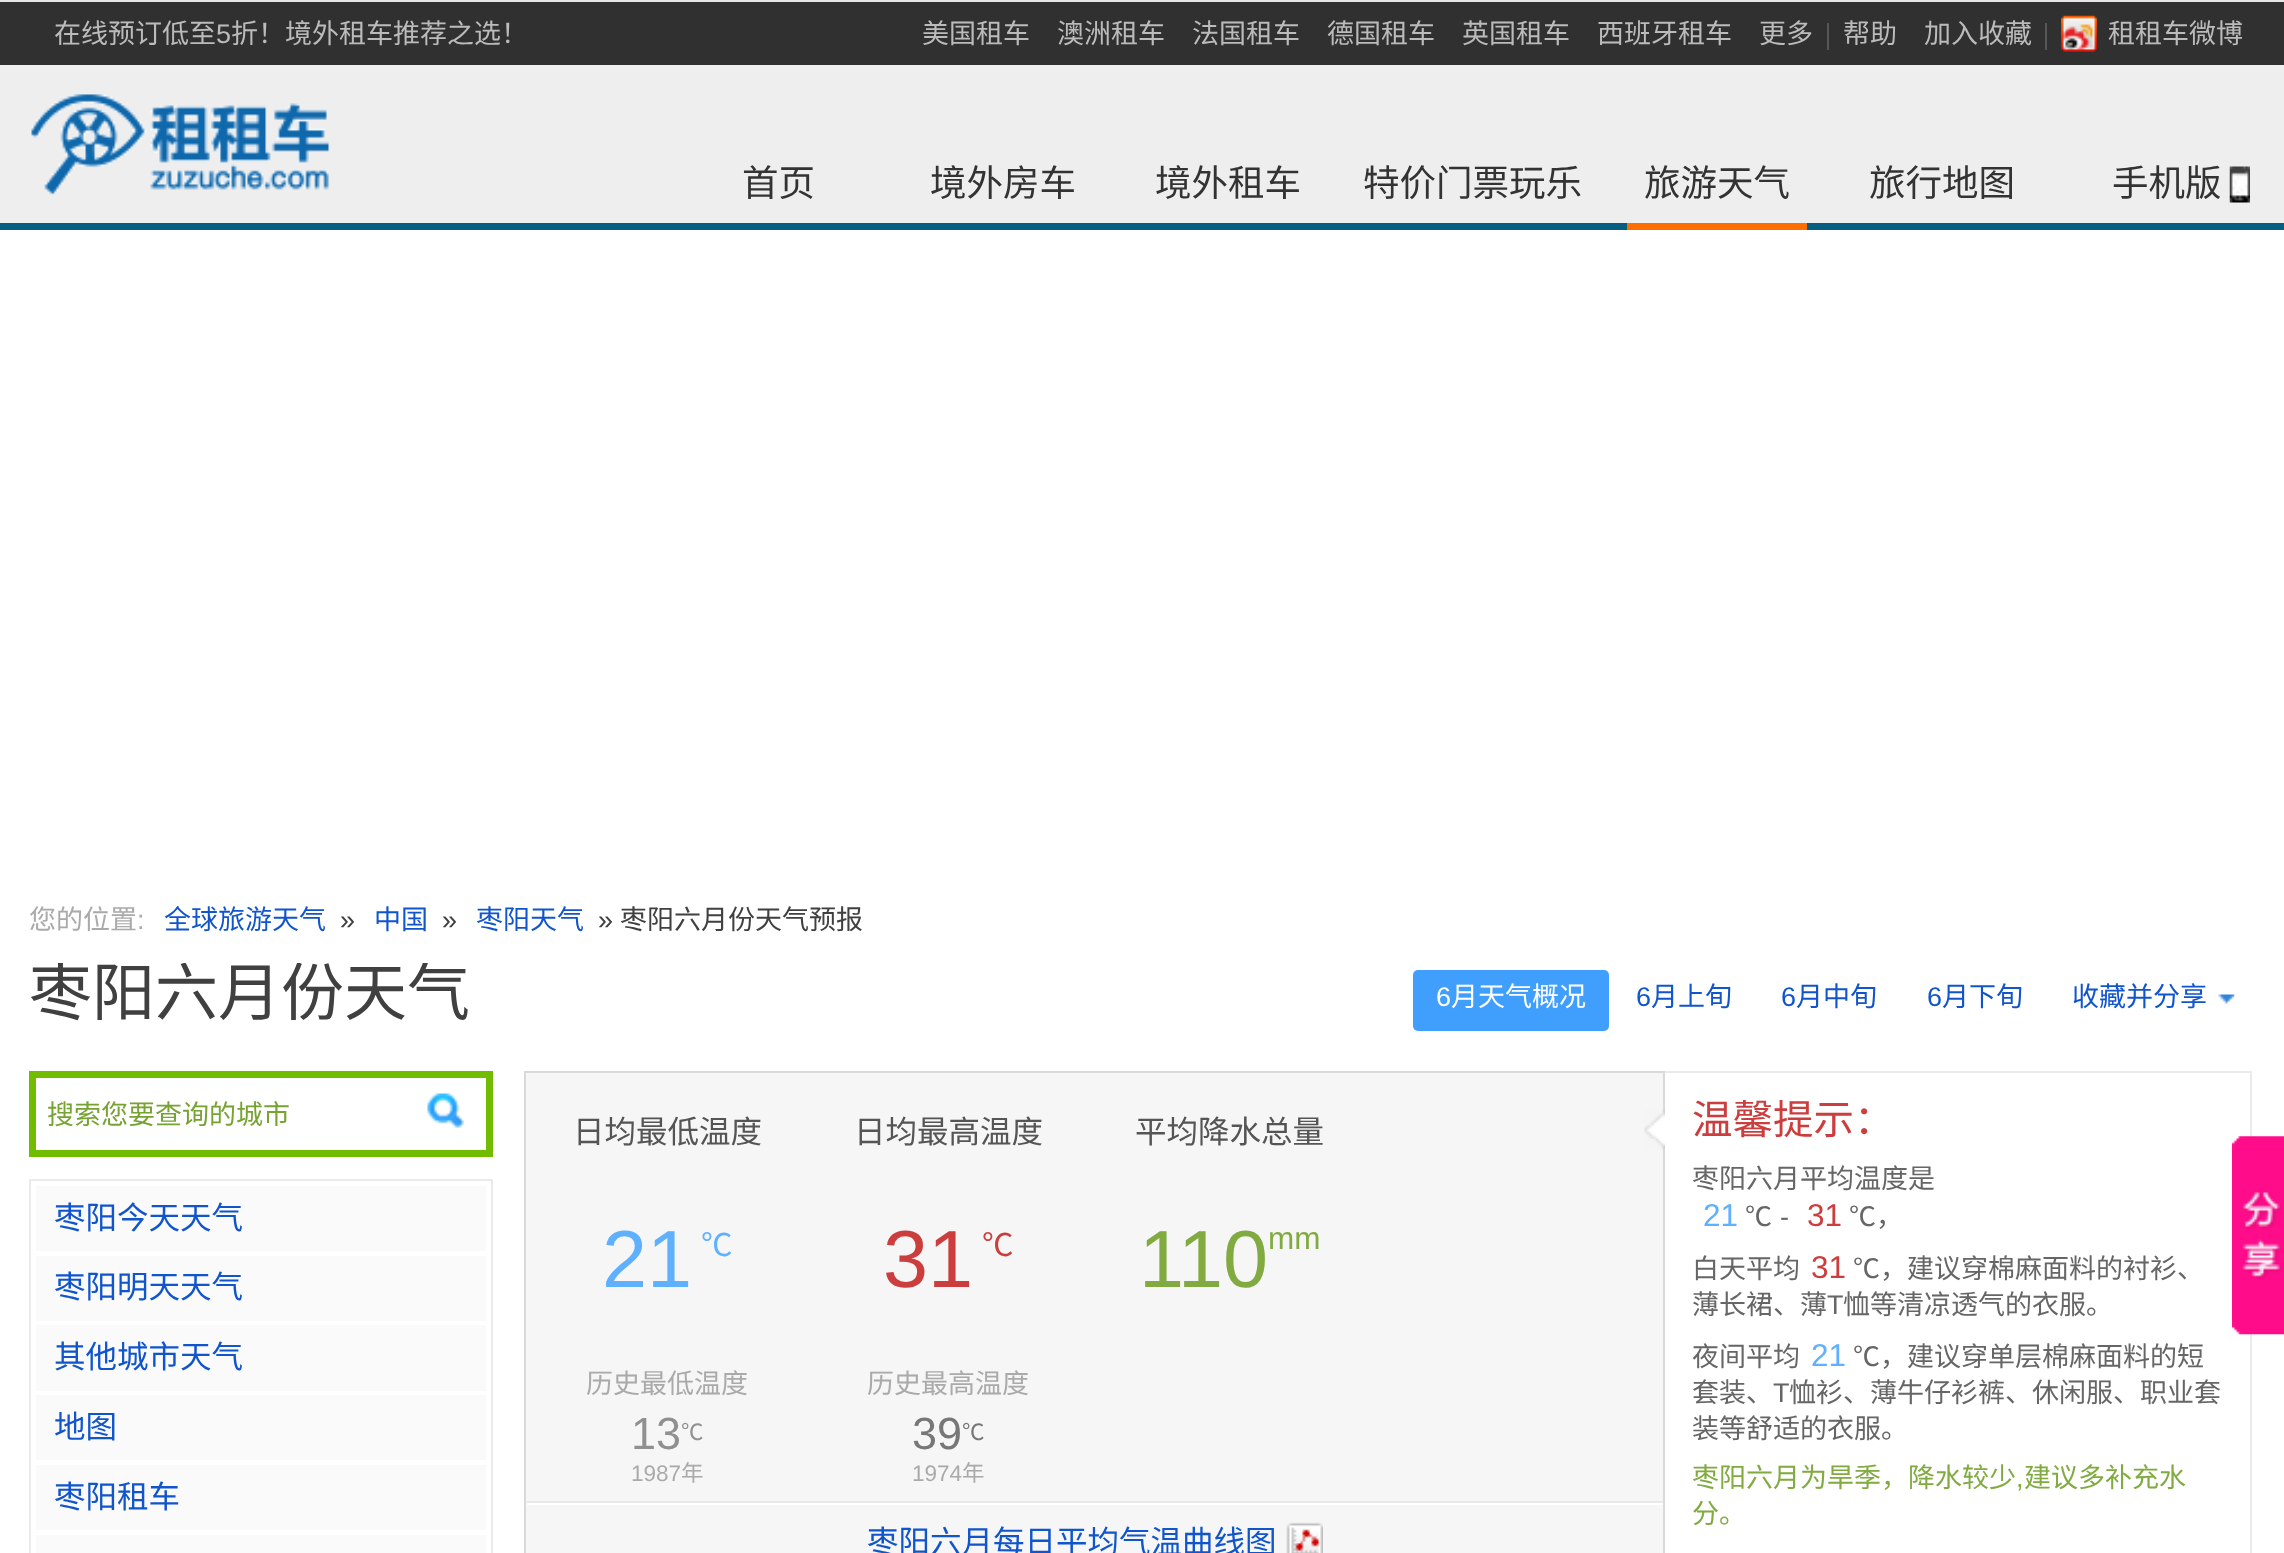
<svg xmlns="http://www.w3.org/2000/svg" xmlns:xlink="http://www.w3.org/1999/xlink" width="2284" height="1553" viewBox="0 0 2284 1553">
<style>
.cls-1{font:27px Noto Sans CJK SC;fill:#bbbbbb}
.cls-2{font:27px Liberation Sans;fill:#bbbbbb}
.cls-3{font:36.5px Noto Sans CJK SC;fill:#333333}
.cls-4{font:27px Noto Sans CJK SC;fill:#aaaaaa}
.cls-5{font:27px Liberation Sans;fill:#aaaaaa}
.cls-6{font:27px Noto Sans CJK SC;fill:#1155cc}
.cls-7{font:27px Liberation Sans;fill:#404040}
.cls-8{font:27px Noto Sans CJK SC;fill:#404040}
.cls-9{font:63px Noto Sans CJK SC;fill:#404040}
.cls-10{font:27px Liberation Sans;fill:#ffffff}
.cls-11{font:27px Noto Sans CJK SC;fill:#ffffff}
.cls-12{font:27px Liberation Sans;fill:#1155cc}
.cls-13{font:27px Noto Sans CJK SC;fill:#76a332}
.cls-14{font:31.5px Noto Sans CJK SC;fill:#1155cc}
.cls-15{font:31.5px Noto Sans CJK SC;fill:#555555}
.cls-16{font:81px Liberation Sans;fill:#5fb0ff}
.cls-17{font:31.5px Noto Sans CJK SC;fill:#5fb0ff}
.cls-18{font:45px Liberation Sans;fill:#909090}
.cls-19{font:22.5px Noto Sans CJK SC;fill:#909090}
.cls-20{font:22.5px Liberation Sans;fill:#aaaaaa}
.cls-21{font:22.5px Noto Sans CJK SC;fill:#aaaaaa}
.cls-22{font:81px Liberation Sans;fill:#cc3d3d}
.cls-23{font:31.5px Noto Sans CJK SC;fill:#cc3d3d}
.cls-24{font:45px Liberation Sans;fill:#777777}
.cls-25{font:22.5px Noto Sans CJK SC;fill:#777777}
.cls-26{font:81px Liberation Sans;fill:#81ab41}
.cls-27{font:31.5px Liberation Sans;fill:#81ab41}
.cls-28{font:40.5px Noto Sans CJK SC;fill:#cc3d3d}
.cls-29{font:27px Noto Sans CJK SC;fill:#666666}
.cls-30{font:31.5px Liberation Sans;fill:#5fb0ff}
.cls-31{font:27px Liberation Sans;fill:#666666}
.cls-32{font:31.5px Liberation Sans;fill:#cc3d3d}
.cls-33{font:27px Noto Sans CJK SC;fill:#81ab41}
.cls-34{font:27px Liberation Sans;fill:#81ab41}
</style>
<defs>
<clipPath id="clip1"><rect x="29" y="963" width="2228" height="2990"/></clipPath>
</defs>
<rect width="100%" height="100%" fill="#ffffff"/>
<rect fill="#eeeeee" x="0" y="65" width="2284" height="158"/>
<rect fill="#e5e5e5" x="0" y="0" width="2284" height="2"/>
<rect fill="#075c81" x="0" y="223" width="2284" height="7"/>
<rect fill="#303030" x="0" y="2" width="2284" height="63"/>
<rect fill="#565656" x="1827" y="23" width="2" height="27"/>
<rect fill="#565656" x="2045" y="23" width="2" height="27"/>
<image xlink:href="image0.png" x="2061" y="15" width="36" height="37"/>
<image xlink:href="image1.png" x="31" y="94" width="299" height="101"/>
<rect fill="#ff6c00" x="1627" y="223" width="180" height="7"/>
<image xlink:href="image2.png" x="2229" y="166" width="21" height="37"/>
<rect fill="#409ffd" x="1413" y="970" width="196" height="61" rx="5"/>
<image xlink:href="image3.png" x="2218" y="994" width="17" height="10"/>
<rect fill="none" stroke="#72bc00" stroke-width="7" x="32.5" y="1074.5" width="457" height="79"/>
<image xlink:href="image4.png" x="427" y="1093" width="37" height="35"/>
<rect fill="none" stroke="#eaeaea" stroke-width="2" x="30" y="1180" width="462" height="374"/>
<rect fill="#fafafa" x="36" y="1186" width="450" height="65"/>
<rect fill="#fafafa" x="36" y="1256" width="450" height="65"/>
<rect fill="#fafafa" x="36" y="1325" width="450" height="66"/>
<rect fill="#fafafa" x="36" y="1395" width="450" height="65"/>
<rect fill="#fafafa" x="36" y="1465" width="450" height="65"/>
<rect fill="#fafafa" x="36" y="1535" width="450" height="18"/>
<rect fill="#f6f6f6" stroke="#d9d9d9" stroke-width="2" x="525" y="1072" width="1139" height="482"/>
<image xlink:href="image5.png" x="1644" y="1109" width="21" height="41"/>
<rect fill="#e8e8e8" x="527" y="1501" width="1136" height="2"/>
<rect fill="#ffffff" x="527" y="1503" width="1136" height="2"/>
<image xlink:href="image6.png" x="1286" y="1522" width="37" height="31"/>
<rect fill="#eaeaea" x="1665" y="1071" width="587" height="2"/>
<rect fill="#eaeaea" x="2250" y="1071" width="2" height="482"/>
<image xlink:href="image7.png" x="2232" y="1136" width="52" height="199"/>
<text class="cls-1" x="54" y="43">在线预订低至</text>
<text class="cls-2" x="216" y="43">5</text>
<text class="cls-1" x="231" y="43">折！境外租车推荐之选！</text>
<text class="cls-1" x="922" y="43">美国租车</text>
<text class="cls-1" x="1057" y="43">澳洲租车</text>
<text class="cls-1" x="1192" y="43">法国租车</text>
<text class="cls-1" x="1327" y="43">德国租车</text>
<text class="cls-1" x="1462" y="43">英国租车</text>
<text class="cls-1" x="1597" y="43">西班牙租车</text>
<text class="cls-1" x="1759" y="43">更多</text>
<text class="cls-1" x="1843" y="43">帮助</text>
<text class="cls-1" x="1924" y="43">加入收藏</text>
<text class="cls-1" x="2108" y="43">租租车微博</text>
<text class="cls-3" x="742" y="196">首页</text>
<text class="cls-3" x="930" y="196">境外房车</text>
<text class="cls-3" x="1155" y="196">境外租车</text>
<text class="cls-3" x="1363" y="196">特价门票玩乐</text>
<text class="cls-3" x="1644" y="196">旅游天气</text>
<text class="cls-3" x="1869" y="196">旅行地图</text>
<text class="cls-3" x="2112" y="196">手机版</text>
<text class="cls-4" x="29" y="929">您的位置</text>
<text class="cls-5" x="137" y="929">:</text>
<text class="cls-6" x="164" y="929">全球旅游天气</text>
<text class="cls-7" x="340" y="929">»</text>
<text class="cls-6" x="374" y="929">中国</text>
<text class="cls-7" x="442" y="929">»</text>
<text class="cls-6" x="476" y="929">枣阳天气</text>
<text class="cls-7" x="598" y="929">»</text>
<text class="cls-8" x="620" y="929">枣阳六月份天气预报</text>
<g clip-path="url(#clip1)">
<text class="cls-9" x="29" y="1015">枣阳六月份天气</text>
</g>
<text class="cls-10" x="1436" y="1006">6</text>
<text class="cls-11" x="1451" y="1006">月天气概况</text>
<text class="cls-12" x="1636" y="1006">6</text>
<text class="cls-6" x="1651" y="1006">月上旬</text>
<text class="cls-12" x="1781" y="1006">6</text>
<text class="cls-6" x="1796" y="1006">月中旬</text>
<text class="cls-12" x="1927" y="1006">6</text>
<text class="cls-6" x="1942" y="1006">月下旬</text>
<text class="cls-6" x="2072" y="1006">收藏并分享</text>
<text class="cls-13" x="47" y="1124">搜索您要查询的城市</text>
<text class="cls-14" x="54" y="1229">枣阳今天天气</text>
<text class="cls-14" x="54" y="1298">枣阳明天天气</text>
<text class="cls-14" x="54" y="1368">其他城市天气</text>
<text class="cls-14" x="54" y="1438">地图</text>
<text class="cls-14" x="54" y="1508">枣阳租车</text>
<text class="cls-15" x="573" y="1143">日均最低温度</text>
<text class="cls-16" x="602" y="1287">21</text>
<text class="cls-17" x="701" y="1256">℃</text>
<text class="cls-4" x="586" y="1393">历史最低温度</text>
<text class="cls-18" x="631" y="1449">13</text>
<text class="cls-19" x="681" y="1440">℃</text>
<text class="cls-20" x="631" y="1481">1987</text>
<text class="cls-21" x="681" y="1481">年</text>
<text class="cls-15" x="854" y="1143">日均最高温度</text>
<text class="cls-22" x="883" y="1287">31</text>
<text class="cls-23" x="982" y="1256">℃</text>
<text class="cls-4" x="867" y="1393">历史最高温度</text>
<text class="cls-24" x="912" y="1449">39</text>
<text class="cls-25" x="962" y="1440">℃</text>
<text class="cls-20" x="912" y="1481">1974</text>
<text class="cls-21" x="962" y="1481">年</text>
<text class="cls-15" x="1135" y="1143">平均降水总量</text>
<text class="cls-26" x="1139" y="1287">110</text>
<text class="cls-27" x="1268" y="1249">mm</text>
<text class="cls-14" x="867" y="1553">枣阳六月每日平均气温曲线图</text>
<text class="cls-28" x="1692" y="1134">温馨提示：</text>
<text class="cls-29" x="1692" y="1188">枣阳六月平均温度是</text>
<text class="cls-30" x="1703" y="1226">21</text>
<text class="cls-29" x="1745" y="1226">℃</text>
<text class="cls-31" x="1780" y="1226">-</text>
<text class="cls-32" x="1807" y="1226">31</text>
<text class="cls-29" x="1849" y="1226">℃，</text>
<text class="cls-29" x="1692" y="1278">白天平均</text>
<text class="cls-32" x="1811" y="1278">31</text>
<text class="cls-29" x="1853" y="1278">℃，建议穿棉麻面料的衬衫、</text>
<text class="cls-29" x="1692" y="1314">薄长裙、薄</text>
<text class="cls-31" x="1827" y="1314">T</text>
<text class="cls-29" x="1843" y="1314">恤等清凉透气的衣服。</text>
<text class="cls-29" x="1692" y="1366">夜间平均</text>
<text class="cls-30" x="1811" y="1366">21</text>
<text class="cls-29" x="1853" y="1366">℃，建议穿单层棉麻面料的短</text>
<text class="cls-29" x="1692" y="1402">套装、</text>
<text class="cls-31" x="1773" y="1402">T</text>
<text class="cls-29" x="1789" y="1402">恤衫、薄牛仔衫裤、休闲服、职业套</text>
<text class="cls-29" x="1692" y="1438">装等舒适的衣服。</text>
<text class="cls-33" x="1692" y="1487">枣阳六月为旱季，降水较少</text>
<text class="cls-34" x="2016" y="1487">,</text>
<text class="cls-33" x="2024" y="1487">建议多补充水</text>
<text class="cls-33" x="1692" y="1523">分。</text>
</svg>
